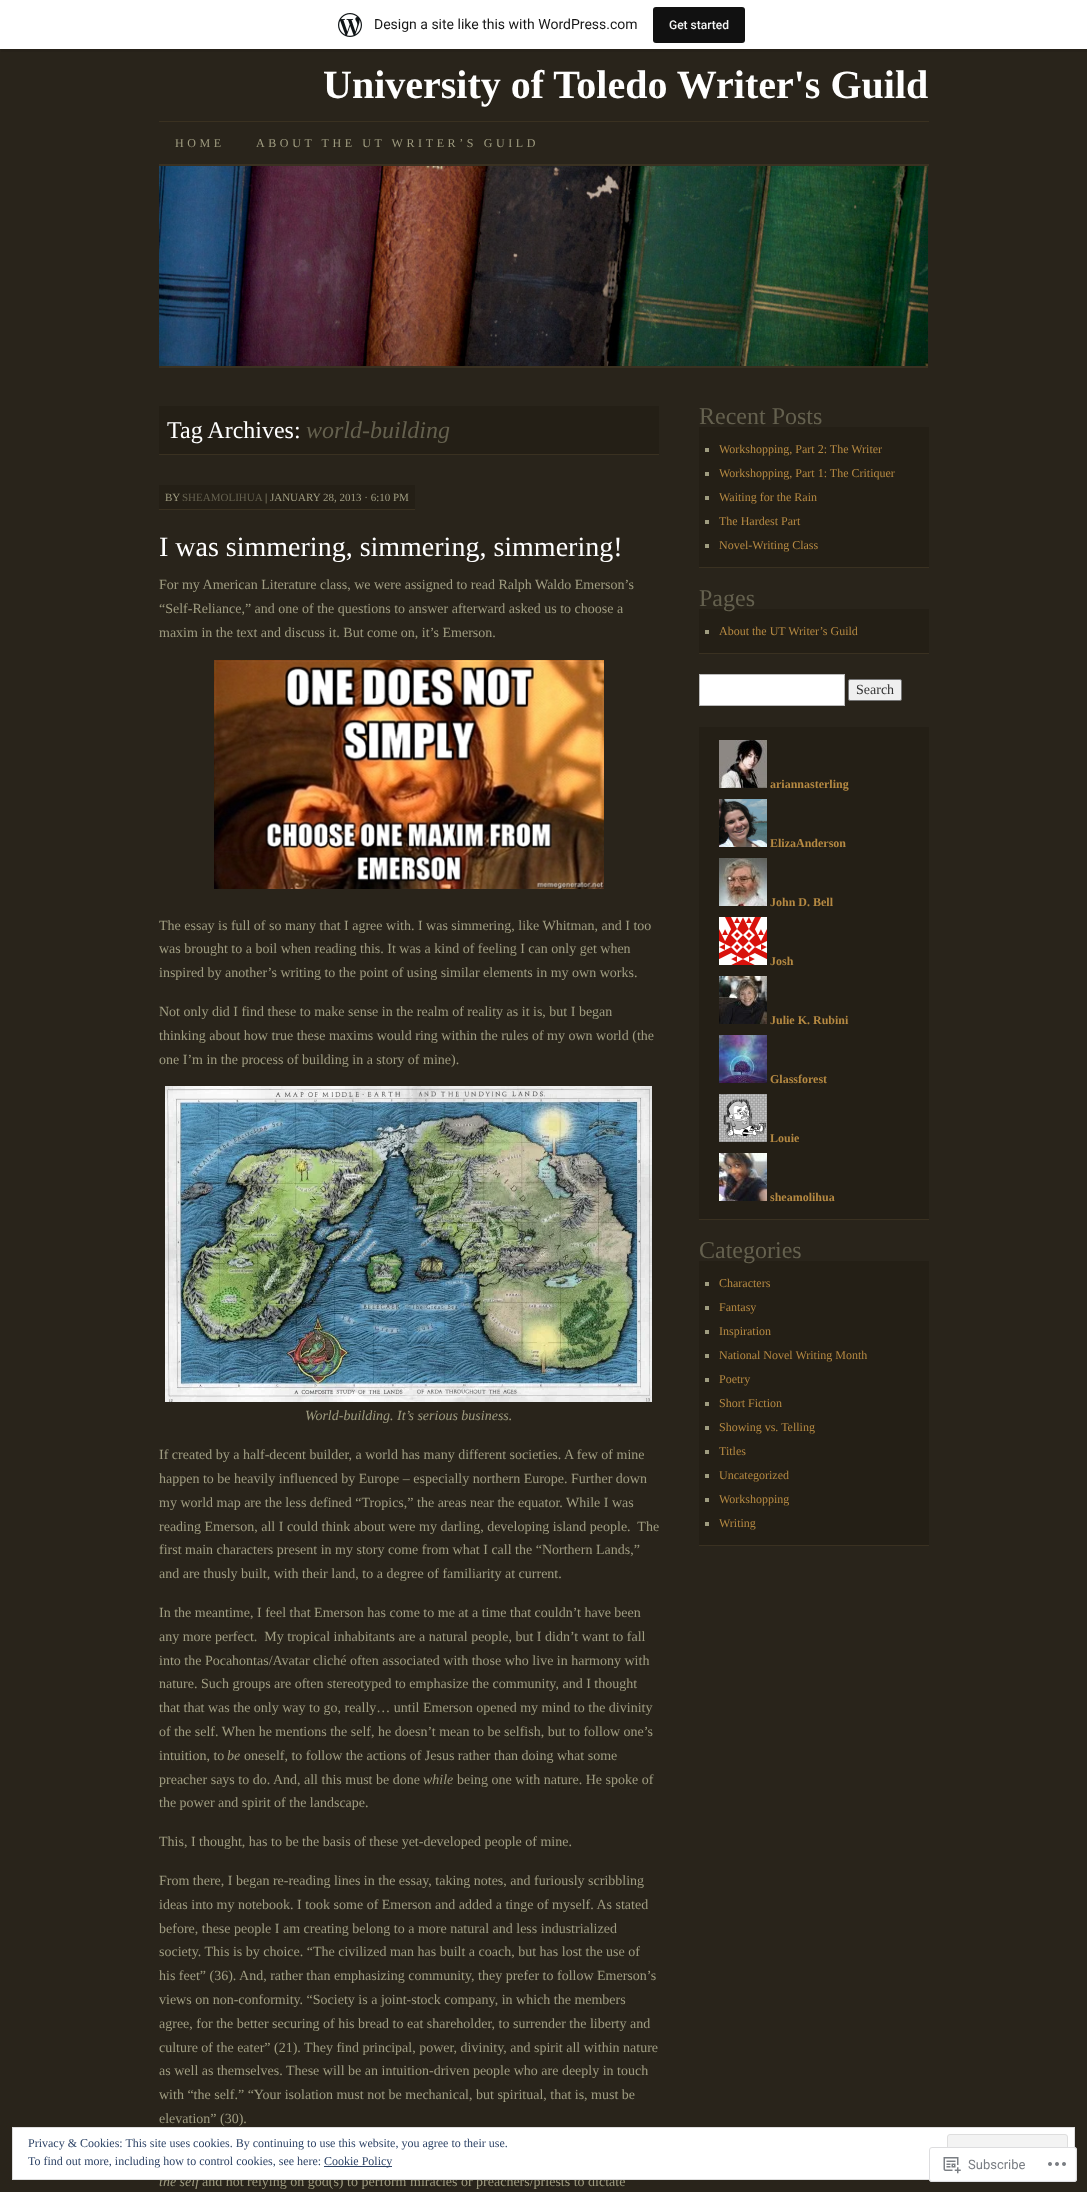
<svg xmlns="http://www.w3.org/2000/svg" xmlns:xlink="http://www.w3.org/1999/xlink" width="1087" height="2192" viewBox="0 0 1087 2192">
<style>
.cls-1{font:14px Roboto;fill:#171717}
.cls-2{font:500 12px Roboto;fill:#f6f7f7}
.cls-3{font:bold 40px Liberation Serif;fill:#ffffff}
.cls-4{font:12px Liberation Serif;letter-spacing:3.6px;fill:#9f9c80}
.cls-5{font:24px Liberation Serif;fill:#ffffff}
.cls-6{font:italic 24px Liberation Serif;fill:#64604e}
.cls-7{font:11px Liberation Serif;fill:#9f9c80}
.cls-8{font:11px Liberation Serif;fill:#64604e}
.cls-9{font:28px Liberation Serif;fill:#ffffff}
.cls-10{font:14px Liberation Serif;fill:#9f9c80}
.cls-11{font:italic 14px Liberation Serif;fill:#9f9c80}
.cls-12{font:24px Liberation Serif;fill:#64604e}
.cls-13{font:12px Liberation Serif;fill:#b58942}
.cls-14{font:14px Liberation Serif;fill:#333333}
.cls-15{font:bold 12px Liberation Serif;fill:#b58942}
.cls-16{font:12px Liberation Serif;fill:#2e4467}
.cls-17{font:13px Roboto;fill:#7a7e84}
</style>
<rect width="100%" height="100%" fill="#29241b"/>
<path fill="#262119" d="M1 49V52H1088V3H1087V49Z"/>
<rect fill="#ffffff" x="0" y="0" width="1087" height="49"/>
<image xlink:href="image0.png" x="338" y="13" width="24" height="24"/>
<rect fill="#111111" x="653" y="7" width="92" height="36" rx="3"/>
<rect fill="#3a3121" x="159" y="121" width="770" height="1"/>
<rect fill="#3a3121" x="159" y="164" width="770" height="2"/>
<image xlink:href="image1.png" x="159" y="166" width="769" height="200"/>
<rect fill="#3a3121" x="159" y="366" width="769" height="2"/>
<rect fill="#241f16" x="159" y="406" width="500" height="48"/>
<rect fill="#3a3121" x="159" y="454" width="500" height="1"/>
<rect fill="#241f16" x="159" y="485" width="256" height="24"/>
<rect fill="#3a3121" x="159" y="509" width="256" height="1"/>
<image xlink:href="image2.png" x="214" y="660" width="390" height="229"/>
<image xlink:href="image3.png" x="165" y="1086" width="487" height="316"/>
<rect fill="#241f16" x="699" y="427" width="230" height="140"/>
<rect fill="#3a3121" x="699" y="567" width="230" height="1"/>
<rect fill="#9f9c80" x="705" y="448" width="4" height="4"/>
<rect fill="#9f9c80" x="705" y="472" width="4" height="4"/>
<rect fill="#9f9c80" x="705" y="496" width="4" height="4"/>
<rect fill="#9f9c80" x="705" y="520" width="4" height="4"/>
<rect fill="#9f9c80" x="705" y="544" width="4" height="4"/>
<rect fill="#241f16" x="699" y="609" width="230" height="44"/>
<rect fill="#3a3121" x="699" y="653" width="230" height="1"/>
<rect fill="#9f9c80" x="705" y="630" width="4" height="4"/>
<rect fill="#ffffff" stroke="#bbbbbb" x="699.5" y="674.5" width="145" height="31"/>
<rect fill="#efefef" stroke="#767676" x="848.5" y="679.5" width="53" height="21" rx="1.5"/>
<rect fill="#241f16" x="699" y="727" width="230" height="492"/>
<rect fill="#3a3121" x="699" y="1219" width="230" height="1"/>
<image xlink:href="image4.png" x="719" y="740" width="48" height="48"/>
<image xlink:href="image5.png" x="719" y="799" width="48" height="48"/>
<image xlink:href="image6.png" x="719" y="858" width="48" height="48"/>
<image xlink:href="image7.png" x="719" y="917" width="48" height="48"/>
<image xlink:href="image8.png" x="719" y="976" width="48" height="48"/>
<image xlink:href="image9.png" x="719" y="1035" width="48" height="48"/>
<image xlink:href="image10.png" x="719" y="1094" width="48" height="48"/>
<image xlink:href="image11.png" x="719" y="1153" width="48" height="48"/>
<rect fill="#241f16" x="699" y="1261" width="230" height="284"/>
<rect fill="#3a3121" x="699" y="1545" width="230" height="1"/>
<rect fill="#9f9c80" x="705" y="1282" width="4" height="4"/>
<rect fill="#9f9c80" x="705" y="1306" width="4" height="4"/>
<rect fill="#9f9c80" x="705" y="1330" width="4" height="4"/>
<rect fill="#9f9c80" x="705" y="1354" width="4" height="4"/>
<rect fill="#9f9c80" x="705" y="1378" width="4" height="4"/>
<rect fill="#9f9c80" x="705" y="1402" width="4" height="4"/>
<rect fill="#9f9c80" x="705" y="1426" width="4" height="4"/>
<rect fill="#9f9c80" x="705" y="1450" width="4" height="4"/>
<rect fill="#9f9c80" x="705" y="1474" width="4" height="4"/>
<rect fill="#9f9c80" x="705" y="1498" width="4" height="4"/>
<rect fill="#9f9c80" x="705" y="1522" width="4" height="4"/>
<text class="cls-1" x="374" y="29">Design a site like this with WordPress.com</text>
<text class="cls-2" x="669" y="29">Get started</text>
<text class="cls-3" x="323" y="98">University of Toledo Writer's Guild</text>
<text class="cls-4" x="175" y="147">HOME</text>
<text class="cls-4" x="256" y="147">ABOUT THE UT WRITER’S GUILD</text>
<text class="cls-5" x="167" y="438">Tag Archives:</text>
<text class="cls-6" x="306" y="438">world-building</text>
<text class="cls-7" x="165" y="501">BY</text>
<text class="cls-8" x="182" y="501">SHEAMOLIHUA</text>
<text class="cls-7" x="265" y="501">| JANUARY 28, 2013 · 6:10 PM</text>
<text class="cls-9" x="159" y="556">I was simmering, simmering, simmering!</text>
<text class="cls-10"><tspan x="159" y="589">For my American Literature class, we were assigned to read Ralph Waldo Emerson’s</tspan><tspan x="159" y="613">“Self-Reliance,” and one of the questions to answer afterward asked us to choose a</tspan><tspan x="159" y="637">maxim in the text and discuss it. But come on, it’s Emerson.</tspan></text>
<text class="cls-10"><tspan x="159" y="930">The essay is full of so many that I agree with. I was simmering, like Whitman, and I too</tspan><tspan x="159" y="953">was brought to a boil when reading this. It was a kind of feeling I can only get when</tspan><tspan x="159" y="977">inspired by another’s writing to the point of using similar elements in my own works.</tspan></text>
<text class="cls-10"><tspan x="159" y="1016">Not only did I find these to make sense in the realm of reality as it is, but I began</tspan><tspan x="159" y="1040">thinking about how true these maxims would ring within the rules of my own world (the</tspan><tspan x="159" y="1064">one I’m in the process of building in a story of mine).</tspan></text>
<text class="cls-11" x="305" y="1420">World-building. It’s serious business.</text>
<text class="cls-10" xml:space="preserve"><tspan x="159" y="1459">If created by a half-decent builder, a world has many different societies. A few of mine</tspan><tspan x="159" y="1483">happen to be heavily influenced by Europe – especially northern Europe. Further down</tspan><tspan x="159" y="1507">my world map are the less defined “Tropics,” the areas near the equator. While I was</tspan><tspan x="159" y="1531">reading Emerson, all I could think about were my darling, developing island people.  The</tspan><tspan x="159" y="1554">first main characters present in my story come from what I call the “Northern Lands,”</tspan><tspan x="159" y="1578">and are thusly built, with their land, to a degree of familiarity at current.</tspan></text>
<text class="cls-10" xml:space="preserve"><tspan x="159" y="1617">In the meantime, I feel that Emerson has come to me at a time that couldn’t have been</tspan><tspan x="159" y="1641">any more perfect.  My tropical inhabitants are a natural people, but I didn’t want to fall</tspan><tspan x="159" y="1665">into the Pocahontas/Avatar cliché often associated with those who live in harmony with</tspan><tspan x="159" y="1688">nature. Such groups are often stereotyped to emphasize the community, and I thought</tspan><tspan x="159" y="1712">that that was the only way to go, really… until Emerson opened my mind to the divinity</tspan><tspan x="159" y="1736">of the self. When he mentions the self, he doesn’t mean to be selfish, but to follow one’s</tspan><tspan x="159" y="1760">intuition, to</tspan></text>
<text class="cls-11" x="227" y="1760">be</text>
<text class="cls-10" x="244" y="1760">oneself, to follow the actions of Jesus rather than doing what some</text>
<text class="cls-10" x="159" y="1784">preacher says to do. And, all this must be done</text>
<text class="cls-11" x="423" y="1784">while</text>
<text class="cls-10" x="457" y="1784">being one with nature. He spoke of</text>
<text class="cls-10" x="159" y="1807">the power and spirit of the landscape.</text>
<text class="cls-10" x="159" y="1846">This, I thought, has to be the basis of these yet-developed people of mine.</text>
<text class="cls-10"><tspan x="159" y="1885">From there, I began re-reading lines in the essay, taking notes, and furiously scribbling</tspan><tspan x="159" y="1909">ideas into my notebook. I took some of Emerson and added a tinge of myself. As stated</tspan><tspan x="159" y="1933">before, these people I am creating belong to a more natural and less industrialized</tspan><tspan x="159" y="1956">society. This is by choice. “The civilized man has built a coach, but has lost the use of</tspan><tspan x="159" y="1980">his feet” (36). And, rather than emphasizing community, they prefer to follow Emerson’s</tspan><tspan x="159" y="2004">views on non-conformity. “Society is a joint-stock company, in which the members</tspan><tspan x="159" y="2028">agree, for the better securing of his bread to eat shareholder, to surrender the liberty and</tspan><tspan x="159" y="2052">culture of the eater” (21). They find principal, power, divinity, and spirit all within nature</tspan><tspan x="159" y="2075">as well as themselves. These will be an intuition-driven people who are deeply in touch</tspan><tspan x="159" y="2099">with “the self.” “Your isolation must not be mechanical, but spiritual, that is, must be</tspan><tspan x="159" y="2123">elevation” (30).</tspan></text>
<text class="cls-11" x="159" y="2186">the self</text>
<text class="cls-10" x="202" y="2186">and not relying on god(s) to perform miracles or preachers/priests to dictate</text>
<text class="cls-12" x="699" y="424">Recent Posts</text>
<text class="cls-13" x="719" y="453">Workshopping, Part 2: The Writer</text>
<text class="cls-13" x="719" y="477">Workshopping, Part 1: The Critiquer</text>
<text class="cls-13" x="719" y="501">Waiting for the Rain</text>
<text class="cls-13" x="719" y="525">The Hardest Part</text>
<text class="cls-13" x="719" y="549">Novel-Writing Class</text>
<text class="cls-12" x="699" y="606">Pages</text>
<text class="cls-13" x="719" y="635">About the UT Writer’s Guild</text>
<text class="cls-14" x="856" y="694">Search</text>
<text class="cls-15" x="770" y="788">ariannasterling</text>
<text class="cls-15" x="770" y="847">ElizaAnderson</text>
<text class="cls-15" x="770" y="906">John D. Bell</text>
<text class="cls-15" x="770" y="965">Josh</text>
<text class="cls-15" x="770" y="1024">Julie K. Rubini</text>
<text class="cls-15" x="770" y="1083">Glassforest</text>
<text class="cls-15" x="770" y="1142">Louie</text>
<text class="cls-15" x="770" y="1201">sheamolihua</text>
<text class="cls-12" x="699" y="1258">Categories</text>
<text class="cls-13" x="719" y="1287">Characters</text>
<text class="cls-13" x="719" y="1311">Fantasy</text>
<text class="cls-13" x="719" y="1335">Inspiration</text>
<text class="cls-13" x="719" y="1359">National Novel Writing Month</text>
<text class="cls-13" x="719" y="1383">Poetry</text>
<text class="cls-13" x="719" y="1407">Short Fiction</text>
<text class="cls-13" x="719" y="1431">Showing vs. Telling</text>
<text class="cls-13" x="719" y="1455">Titles</text>
<text class="cls-13" x="719" y="1479">Uncategorized</text>
<text class="cls-13" x="719" y="1503">Workshopping</text>
<text class="cls-13" x="719" y="1527">Writing</text>
<rect fill="#ffffff" stroke="#dedede" x="12.5" y="2127.5" width="1062" height="52"/>
<text class="cls-16" x="28" y="2147">Privacy &amp; Cookies: This site uses cookies. By continuing to use this website, you agree to their use.</text>
<rect fill="#f3f3f3" stroke="#dedede" x="947.5" y="2134.5" width="120" height="38" rx="2.5"/>
<text class="cls-16" x="28" y="2165">To find out more, including how to control cookies, see here:</text>
<rect fill="#2e4467" x="324" y="2166" width="68" height="1"/>
<text class="cls-16" x="324" y="2165">Cookie Policy</text>
<rect fill="#ffffff" fill-opacity="0.98" x="929" y="2147" width="148" height="35" rx="3"/>
<rect fill="none" stroke="#dcdcde" stroke-opacity="0.98" x="929.5" y="2147.5" width="147" height="34" rx="2.5"/>
<image xlink:href="image12.png" x="943" y="2157" width="18" height="17"/>
<text class="cls-17" x="968" y="2169">Subscribe</text>
<image xlink:href="image13.png" x="1048" y="2162" width="18" height="4"/>
</svg>
